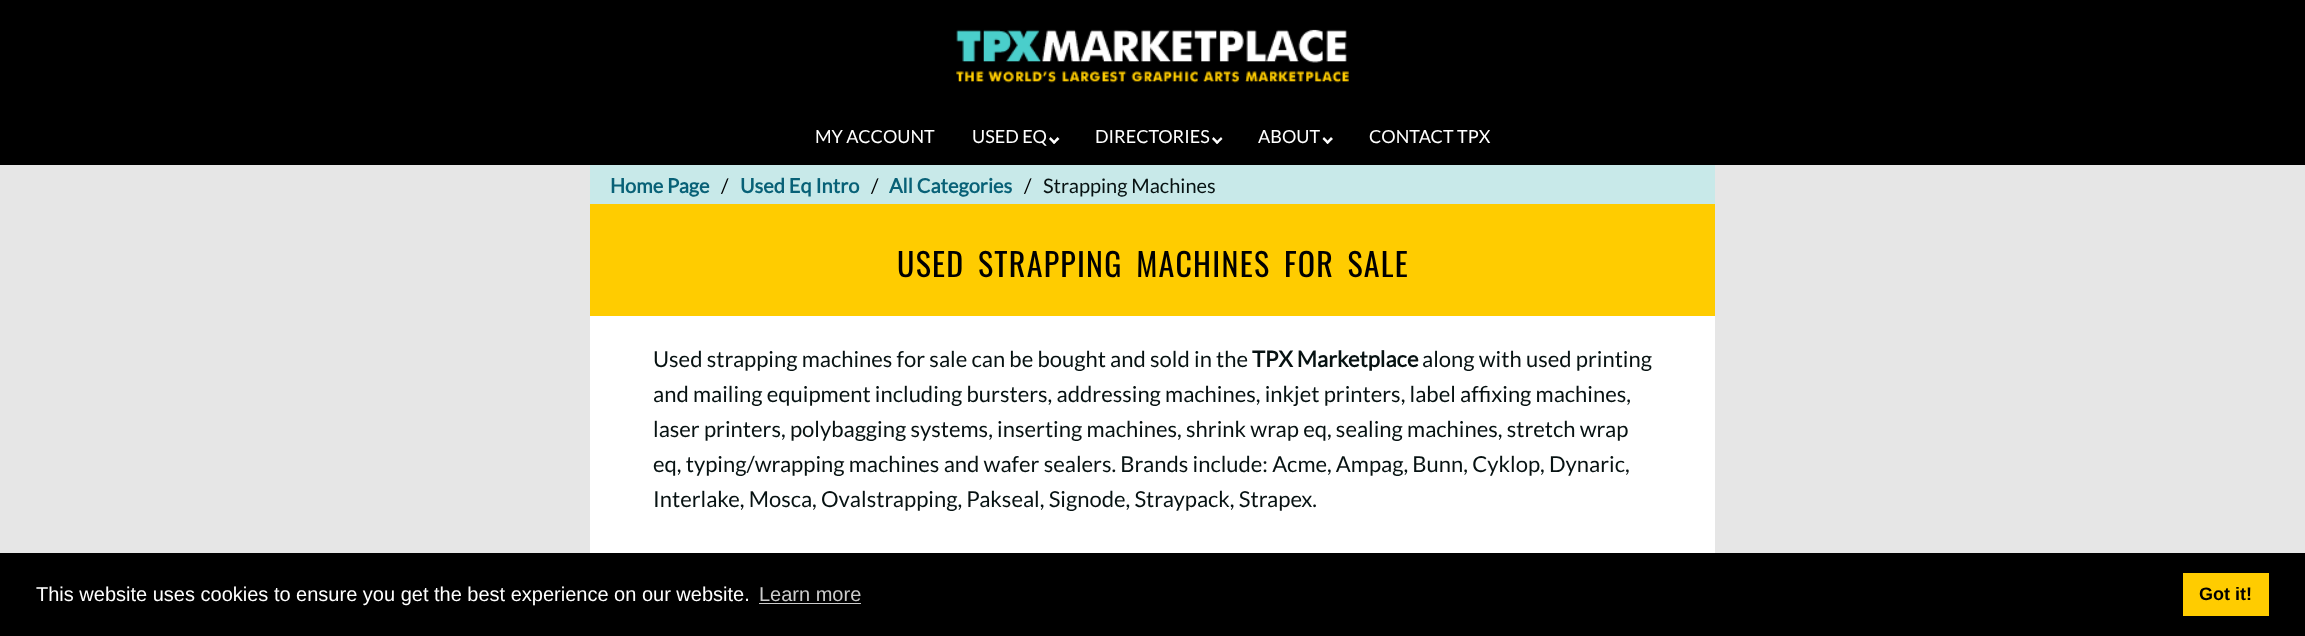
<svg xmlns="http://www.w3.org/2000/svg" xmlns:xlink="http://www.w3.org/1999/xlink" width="2305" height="636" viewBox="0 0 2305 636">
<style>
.cls-1{font:18px Lato;fill:#ffffff}
.cls-2{font:bold 20px Lato;fill:#086177}
.cls-3{font:20px Lato;fill:#000000}
.cls-4{font:20px Lato;fill:#071212}
.cls-5{font:32px Oswald;letter-spacing:1.25px;fill:#000000}
.cls-6{font:22px Lato;fill:#071212}
.cls-7{font:bold 22px Lato;fill:#071212}
.cls-8{font:20px Liberation Sans;fill:#ffffff}
.cls-9{font:20px Liberation Sans;fill:#cccccc}
.cls-10{font:bold 18px Liberation Sans;fill:#000000}
</style>
<rect width="100%" height="100%" fill="#e6e6e6"/>
<rect fill="#000000" x="0" y="0" width="2305" height="165"/>
<image xlink:href="image0.png" x="956" y="29" width="393" height="54"/>
<path fill="#ffffff" d="M1057.5 137L1059.5 139L1054 144L1052.5 142.5Z"/>
<path fill="#ffffff" d="M1050.5 137L1056 142.5L1054 144L1049 139Z"/>
<path fill="#ffffff" d="M1221 137L1222.5 139L1217 144L1215.5 142.5Z"/>
<path fill="#ffffff" d="M1213.5 137L1219 142.5L1217 144L1212 139Z"/>
<path fill="#ffffff" d="M1331 137L1333 139L1327.5 144L1326 142.5Z"/>
<path fill="#ffffff" d="M1324 137L1329.5 142.5L1327.5 144L1322.5 139Z"/>
<rect fill="#c8e9e9" x="590" y="165" width="1125" height="39"/>
<rect fill="#ffcc00" x="590" y="204" width="1125" height="112"/>
<rect fill="#ffffff" x="590" y="316" width="1125" height="237"/>
<rect fill="#000000" x="0" y="553" width="2305" height="83"/>
<rect fill="#cccccc" x="759" y="603" width="102" height="1"/>
<rect fill="#ffcc00" x="2183" y="573" width="86" height="43"/>
<text class="cls-1" x="815" y="143">MY ACCOUNT</text>
<text class="cls-1" x="972" y="143">USED EQ</text>
<text class="cls-1" x="1095" y="143">DIRECTORIES</text>
<text class="cls-1" x="1258" y="143">ABOUT</text>
<text class="cls-1" x="1369" y="143">CONTACT TPX</text>
<text class="cls-2" x="610" y="193">Home Page</text>
<text class="cls-3" x="721" y="193">/</text>
<text class="cls-2" x="740" y="193">Used Eq Intro</text>
<text class="cls-3" x="871" y="193">/</text>
<text class="cls-2" x="889" y="193">All Categories</text>
<text class="cls-3" x="1024" y="193">/</text>
<text class="cls-4" x="1043" y="193">Strapping Machines</text>
<text class="cls-5" x="897" y="277" word-spacing="5">USED STRAPPING MACHINES FOR SALE</text>
<text class="cls-6" x="653" y="367">Used strapping machines for sale can be bought and sold in the</text>
<text class="cls-7" x="1252" y="367">TPX Marketplace</text>
<text class="cls-6" x="1422" y="367">along with used printing</text>
<text class="cls-6"><tspan x="653" y="402">and mailing equipment including bursters, addressing machines, inkjet printers, label affixing machines,</tspan><tspan x="653" y="437">laser printers, polybagging systems, inserting machines, shrink wrap eq, sealing machines, stretch wrap</tspan><tspan x="653" y="472">eq, typing/wrapping machines and wafer sealers. Brands include: Acme, Ampag, Bunn, Cyklop, Dynaric,</tspan><tspan x="653" y="507">Interlake, Mosca, Ovalstrapping, Pakseal, Signode, Straypack, Strapex.</tspan></text>
<text class="cls-8" x="36" y="601">This website uses cookies to ensure you get the best experience on our website.</text>
<text class="cls-9" x="759" y="601">Learn more</text>
<text class="cls-10" x="2199" y="600">Got it!</text>
</svg>
